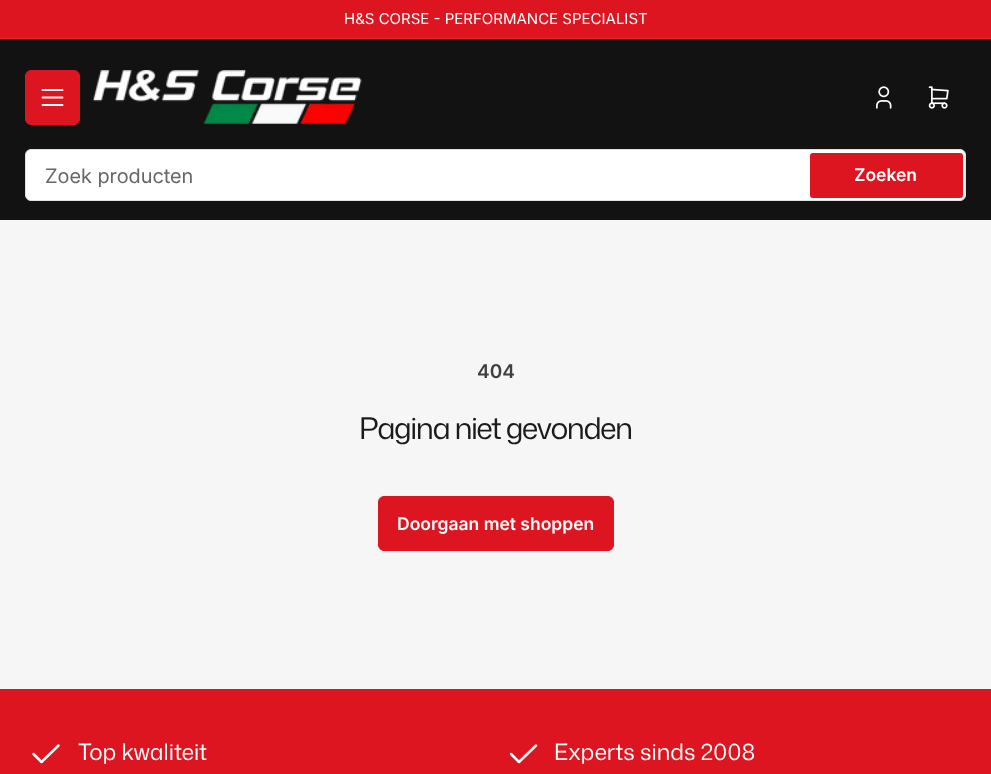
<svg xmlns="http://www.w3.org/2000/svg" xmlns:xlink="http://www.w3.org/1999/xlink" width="991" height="774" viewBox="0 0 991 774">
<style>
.cls-1{font:15px Inter;fill:#ffffff}
.cls-2{font:20px 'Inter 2';fill:#666666}
.cls-3{font:600 17.5px Inter;fill:#ffffff}
.cls-4{font:600 19px Inter;fill:#404040}
.cls-5{font:30px Mona Sans;letter-spacing:-1.5px;fill:#1b1b1b}
.cls-6{font:22.5px Mona Sans;fill:#ffffff}
</style>
<rect width="100%" height="100%" fill="#f6f6f6"/>
<rect fill="#dc1521" x="0" y="0" width="991" height="38"/>
<rect fill="#de2531" x="0" y="38" width="991" height="1"/>
<rect fill="#121212" x="0" y="39" width="991" height="181"/>
<rect fill="#dc1521" stroke="#dc1521" x="25.5" y="70.5" width="54" height="54" rx="5.5"/>
<path fill="none" stroke="#ffffff" stroke-width="1.9" stroke-linecap="round" stroke-linejoin="round" d="M42.5 90H62.5M42.5 97.5H62.5M42.5 105H62.5"/>
<image xlink:href="image0.png" x="92" y="70" width="270" height="54"/>
<image xlink:href="image1.png" x="876" y="86" width="16" height="23"/>
<image xlink:href="image2.png" x="928" y="86" width="21" height="23"/>
<rect fill="#ffffff" stroke="#e1e1e1" x="25.5" y="149.5" width="940" height="51" rx="5.5"/>
<rect fill="#dc1521" stroke="#dc1521" x="810.5" y="153.5" width="152" height="44" rx="2"/>
<rect fill="#dc1521" stroke="#dc1521" x="378.5" y="496.5" width="235" height="54" rx="5.5"/>
<rect fill="#dc1521" x="0" y="689" width="991" height="85"/>
<path fill="none" stroke="#ffffff" stroke-width="2.5" stroke-linecap="round" stroke-linejoin="round" d="M33.5 754L41.5 762L58.5 745.5"/>
<path fill="none" stroke="#ffffff" stroke-width="2.5" stroke-linecap="round" stroke-linejoin="round" d="M511 754L519 762L536 745.5"/>
<text class="cls-1" x="344" y="24">H&amp;S CORSE - PERFORMANCE SPECIALIST</text>
<text class="cls-2" x="45" y="183">Zoek producten</text>
<text class="cls-3" x="854" y="181">Zoeken</text>
<text class="cls-4" x="477" y="378">404</text>
<text class="cls-5" x="359" y="439">Pagina niet gevonden</text>
<text class="cls-3" x="397" y="530">Doorgaan met shoppen</text>
<text class="cls-6" x="78" y="760">Top kwaliteit</text>
<text class="cls-6" x="554" y="760">Experts sinds 2008</text>
</svg>
